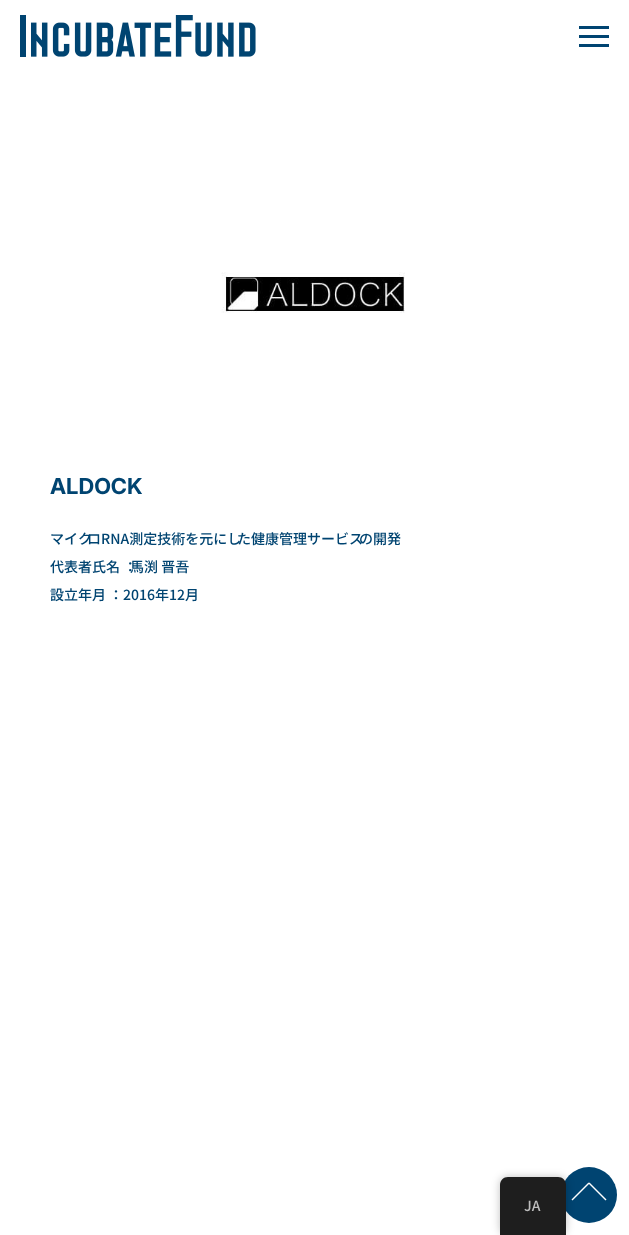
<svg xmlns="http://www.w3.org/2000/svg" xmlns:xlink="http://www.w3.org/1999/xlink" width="629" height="1235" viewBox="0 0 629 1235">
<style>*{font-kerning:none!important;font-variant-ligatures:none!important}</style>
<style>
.cls-1{font:bold 22px Inter;fill:#004471}
.cls-2{font:500 14px Noto Sans JP;fill:#004471}
.cls-3{font:500 14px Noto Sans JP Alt;fill:#004471}
.cls-4{font:500 14px Noto Sans JP;fill:#bdbdbd}
</style>
<rect width="100%" height="100%" fill="#ffffff"/>
<image xlink:href="image0.png" x="20" y="15" width="236" height="42"/>
<rect fill="#004471" x="579" y="26" width="30" height="3"/>
<rect fill="#004471" x="579" y="35" width="30" height="3"/>
<rect fill="#004471" x="579" y="44" width="30" height="3"/>
<image xlink:href="image1.png" x="221" y="272" width="184" height="41"/>
<circle fill="#004471" cx="589" cy="1195" r="28"/>
<path fill="#ffffff" d="M588.5 1183.5L589.5 1182.5L606.5 1199.5L605.5 1200.5Z"/>
<path fill="#ffffff" d="M588.5 1182.5L589.5 1183.5L572.5 1200.5L571.5 1199.5Z"/>
<rect fill="#000000" fill-opacity="0.25" filter="blur(4px)" x="500" y="1177" width="66" height="58" rx="8"/>
<path fill="#1e1e1e" d="M508 1177H558C562.5 1177 566 1180.5 566 1185V1235H500V1185C500 1180.5 503.5 1177 508 1177Z"/>
<text class="cls-1" x="50" y="494">ALDOCK</text>
<text class="cls-2" x="50" y="544">マイク</text>
<text class="cls-2" x="87" y="544">ロRNA測定技術を元にし</text>
<text class="cls-2" x="237" y="544">た健康管理サービス</text>
<text class="cls-2" x="359" y="544">の開発</text>
<text class="cls-2" x="50" y="572">代表者氏名 ：</text>
<text class="cls-2" x="130" y="572">馬渕 晋吾</text>
<text class="cls-2" x="50" y="600">設立年月</text>
<text class="cls-3" x="109" y="600">：2016年12月</text>
<text class="cls-4" x="524" y="1211">JA</text>
</svg>
